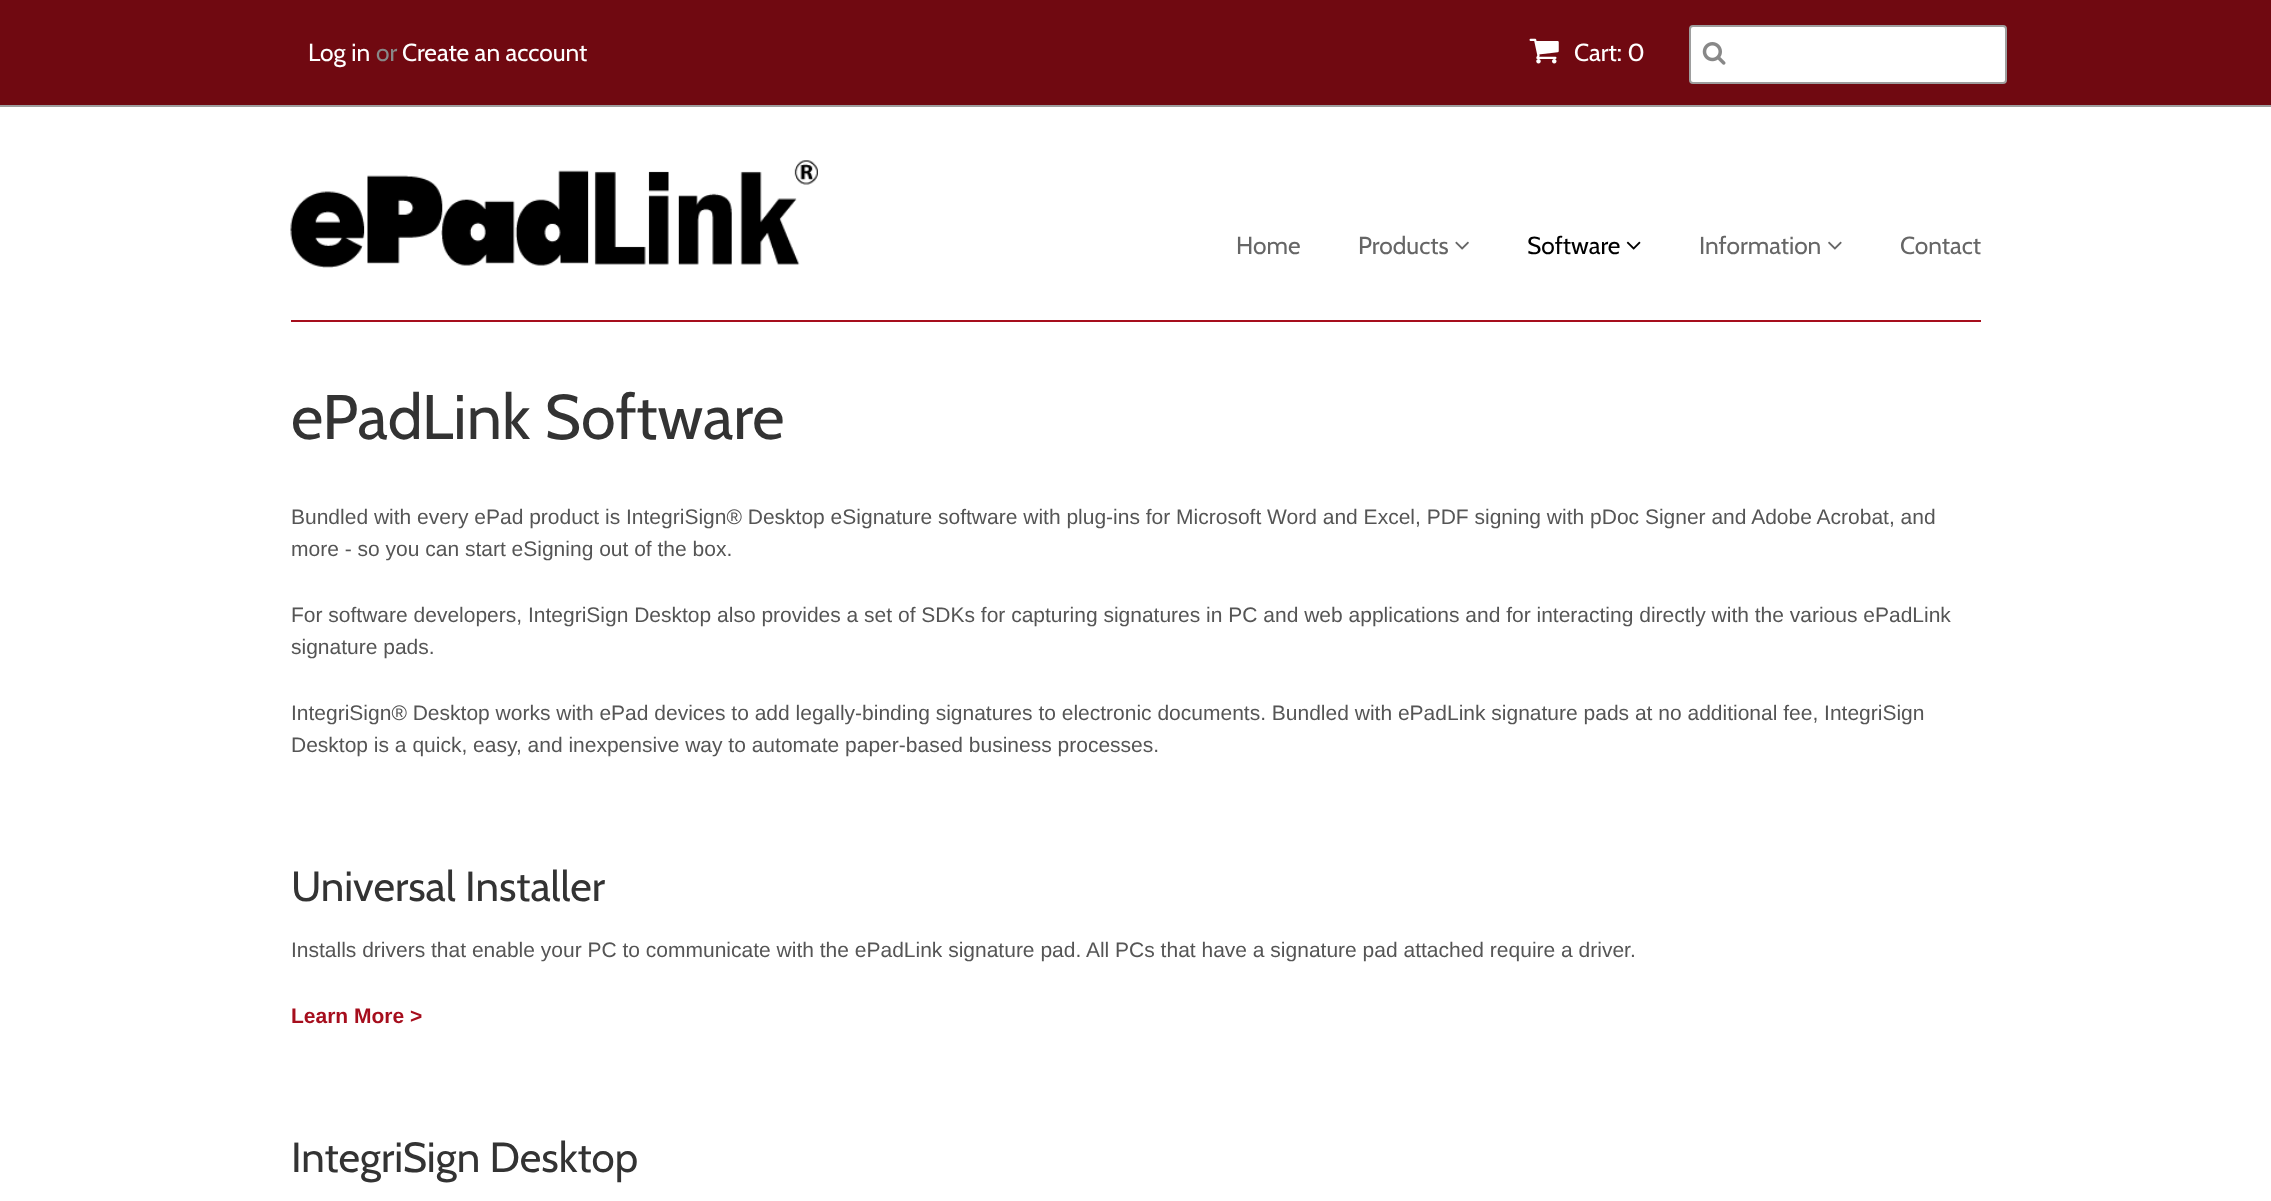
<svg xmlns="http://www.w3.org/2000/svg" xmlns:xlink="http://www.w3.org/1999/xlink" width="2271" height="1201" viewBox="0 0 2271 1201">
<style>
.cls-1{font:24.5px Cabin;fill:#ffffff}
.cls-2{font:24.5px Cabin;fill:#888888}
.cls-3{font:24.5px Cabin;fill:#666666}
.cls-4{font:24.5px Cabin;fill:#000000}
.cls-5{font:63px Cabin;fill:#333333}
.cls-6{font:21px Liberation Sans;fill:#555555}
.cls-7{font:42px Cabin;fill:#333333}
.cls-8{font:bold 21px Liberation Sans;fill:#a60e1d}
</style>
<rect width="100%" height="100%" fill="#ffffff"/>
<rect fill="#700911" x="0" y="0" width="2271" height="105"/>
<rect fill="#9e9e9e" x="0" y="105" width="2271" height="2"/>
<image xlink:href="image0.png" x="1529" y="38" width="30" height="26"/>
<rect fill="#ffffff" stroke="#9e9e9e" stroke-width="2" x="1690" y="26" width="316" height="57" rx="3"/>
<image xlink:href="image1.png" x="1702" y="42" width="24" height="23"/>
<rect fill="#a60e1d" x="291" y="320" width="1690" height="2"/>
<image xlink:href="image2.png" x="290" y="160" width="528" height="108"/>
<image xlink:href="image3.png" x="1455" y="241" width="14" height="9"/>
<image xlink:href="image4.png" x="1626" y="241" width="15" height="9"/>
<image xlink:href="image5.png" x="1828" y="241" width="14" height="9"/>
<text class="cls-1" x="308" y="61">Log in</text>
<text class="cls-2" x="376" y="61">or</text>
<text class="cls-1" x="402" y="61">Create an account</text>
<text class="cls-1" x="1574" y="61">Cart: 0</text>
<text class="cls-3" x="1236" y="254">Home</text>
<text class="cls-3" x="1358" y="254">Products</text>
<text class="cls-4" x="1527" y="254">Software</text>
<text class="cls-3" x="1699" y="254">Information</text>
<text class="cls-3" x="1900" y="254">Contact</text>
<text class="cls-5" x="291" y="439">ePadLink Software</text>
<text class="cls-6"><tspan x="291" y="524">Bundled with every ePad product is IntegriSign® Desktop eSignature software with plug-ins for Microsoft Word and Excel, PDF signing with pDoc Signer and Adobe Acrobat, and</tspan><tspan x="291" y="556">more - so you can start eSigning out of the box.</tspan></text>
<text class="cls-6"><tspan x="291" y="622">For software developers, IntegriSign Desktop also provides a set of SDKs for capturing signatures in PC and web applications and for interacting directly with the various ePadLink</tspan><tspan x="291" y="654">signature pads.</tspan></text>
<text class="cls-6"><tspan x="291" y="720">IntegriSign® Desktop works with ePad devices to add legally-binding signatures to electronic documents. Bundled with ePadLink signature pads at no additional fee, IntegriSign</tspan><tspan x="291" y="752">Desktop is a quick, easy, and inexpensive way to automate paper-based business processes.</tspan></text>
<text class="cls-7" x="291" y="901">Universal Installer</text>
<text class="cls-6" x="291" y="957">Installs drivers that enable your PC to communicate with the ePadLink signature pad. All PCs that have a signature pad attached require a driver.</text>
<text class="cls-8" x="291" y="1023">Learn More &gt;</text>
<text class="cls-7" x="291" y="1172">IntegriSign Desktop</text>
</svg>
